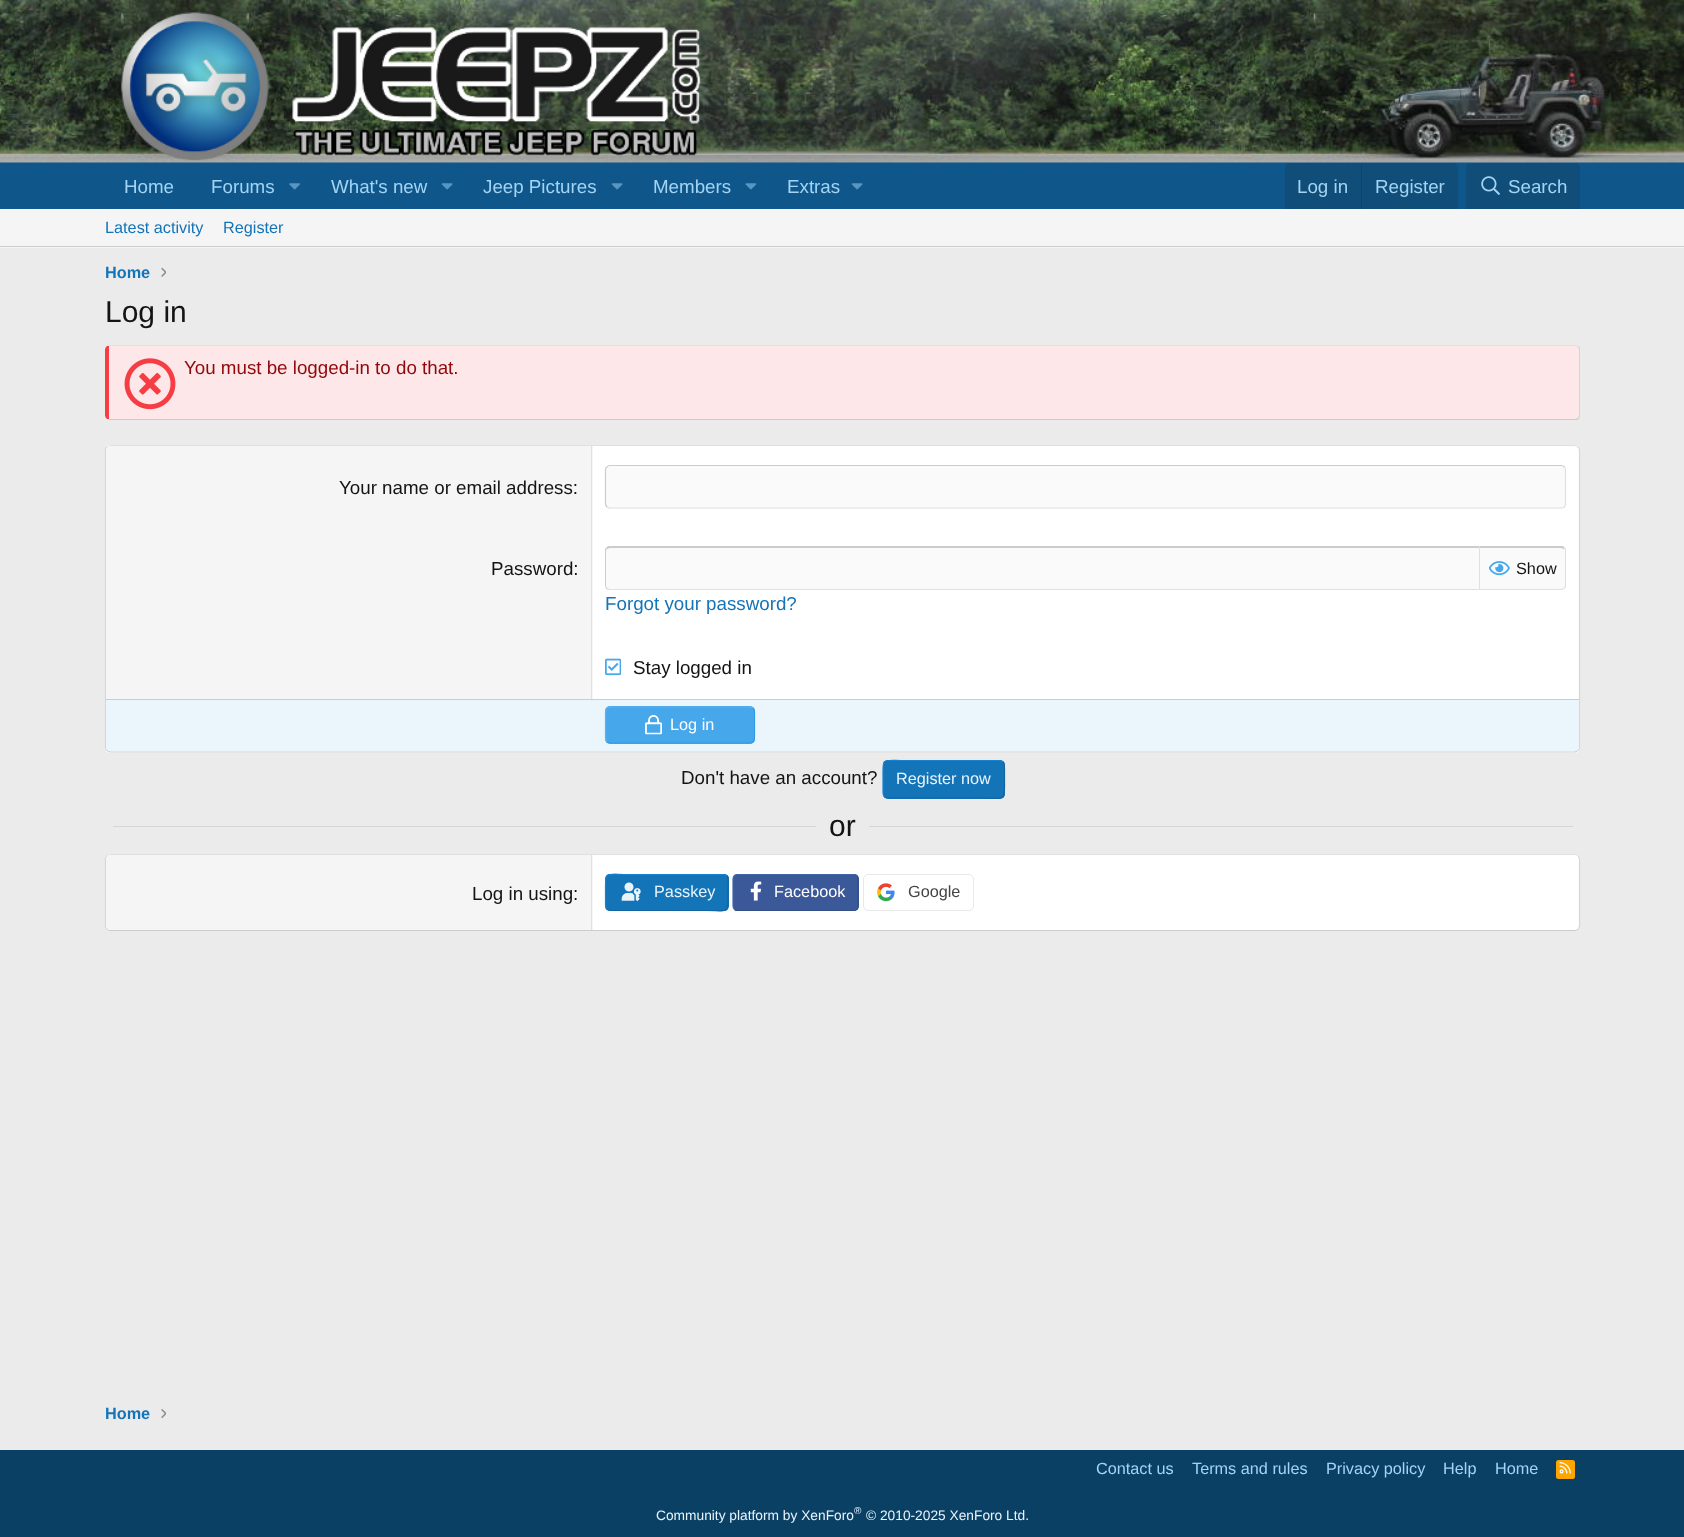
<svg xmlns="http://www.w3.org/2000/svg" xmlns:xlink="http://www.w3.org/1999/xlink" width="1684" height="1537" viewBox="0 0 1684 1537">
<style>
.cls-1{font:18.75px Liberation Sans;fill:#a3d4f5}
.cls-2{font:16.25px Liberation Sans;fill:#1474b8}
.cls-3{font:bold 16.25px Liberation Sans;fill:#1474b8}
.cls-4{font:30px Liberation Sans;fill:#141414}
.cls-5{font:18.75px Liberation Sans;fill:#91080c}
.cls-6{font:18.75px Liberation Sans;fill:#141414}
.cls-7{font:16.25px Liberation Sans;fill:#141414}
.cls-8{font:18.75px Liberation Sans;fill:#1474b8}
.cls-9{font:16.25px Liberation Sans;fill:#ffffff}
.cls-10{font:16.25px Liberation Sans;fill:#e8f4fc}
.cls-11{font:16.25px Liberation Sans;fill:#444444}
.cls-12{font:16.25px Liberation Sans;fill:#a3d4f5}
.cls-13{font:13.75px Liberation Sans;fill:#e8f4fc}
.cls-14{font:10px Liberation Sans;fill:#e8f4fc}
</style>
<rect width="100%" height="100%" fill="#ebebeb"/>
<rect fill="#0f578a" x="0" y="162" width="1684" height="47"/>
<image xlink:href="image0.png" x="0" y="0" width="1684" height="163"/>
<image xlink:href="image1.png" x="121" y="12" width="580" height="149"/>
<image xlink:href="image2.png" x="289" y="183" width="11" height="7"/>
<image xlink:href="image3.png" x="441" y="183" width="12" height="7"/>
<image xlink:href="image3.png" x="611" y="183" width="12" height="7"/>
<image xlink:href="image4.png" x="745" y="183" width="12" height="7"/>
<image xlink:href="image3.png" x="851" y="183" width="12" height="7"/>
<path fill="#104d78" d="M1290 163H1453C1456 163 1458 165 1458 168V209H1285V168C1285 165 1287 163 1290 163Z"/>
<rect fill="#114469" x="1361" y="163" width="1" height="46"/>
<path fill="#104d78" d="M1471 163H1575C1578 163 1580 165 1580 168V209H1466V168C1466 165 1468 163 1471 163Z"/>
<image xlink:href="image5.png" x="1481" y="176" width="19" height="19"/>
<rect fill="#f5f5f5" x="0" y="209" width="1684" height="39"/>
<rect fill="#cccccc" x="0" y="246" width="1684" height="1"/>
<image xlink:href="image6.png" x="161" y="267" width="5" height="10"/>
<path fill="#fee7e8" d="M110 346H1575C1577 346 1579 348 1579 350V415C1579 417 1577 419 1575 419H110C109 419 109 417 109 415V350C109 348 109 346 110 346Z"/>
<path fill="#e0e0e0" d="M110 345L107 346H109H110H1575C1576 346 1577 346 1578 347L1579 346C1578 346 1576 345 1575 345Z"/>
<path fill="#d6d6d6" d="M1580 415V350C1580 348 1580 347 1579 346L1578 347L1579 350V415L1578 418L1579 419C1580 418 1580 416 1580 415Z"/>
<path fill="#cccccc" d="M110 420H1575C1576 420 1578 420 1579 419L1578 418C1577 418 1576 419 1575 419H110H109H107Z"/>
<path fill="#f53d43" d="M105 350V415C105 417 106 418 107 419H109C109 417 109 348 109 346H107C106 347 105 348 105 350Z"/>
<image xlink:href="image7.png" x="124" y="358" width="52" height="52"/>
<rect fill="#ffffff" x="105" y="445" width="1475" height="308" rx="5"/>
<path fill="none" stroke="#e0e0e0" stroke-width="1.2" d="M107 447L110 445.5H1575L1578 447"/>
<path fill="none" stroke="#d6d6d6" stroke-width="1.2" d="M1578 447C1579 447.5 1579.5 449 1579.5 450V747.5C1579.5 748.5 1579 750 1578 750.5"/>
<path fill="none" stroke="#cccccc" stroke-width="1.2" d="M1578 750.5L1575 752H110L107 750.5"/>
<path fill="none" stroke="#d6d6d6" stroke-width="1.2" d="M107 750.5C106 750 105.5 748.5 105.5 747.5V450C105.5 449 106 447.5 107 447"/>
<path fill="#f5f5f5" d="M110 446H593V528H106V450C106 448 108 446 110 446Z"/>
<rect fill="#e0e0e0" x="591" y="446" width="1" height="82"/>
<rect fill="#fafafa" x="605" y="465" width="961" height="44" rx="5"/>
<path fill="none" stroke="#e0e0e0" stroke-width="1.2" d="M1564.5 467C1565 467.5 1565.5 469 1565.5 470V504C1565.5 505 1565 506 1564.5 507C1563.5 507.5 1562.5 508 1561 508H610C609 508 607.5 507.5 607 507"/>
<path fill="none" stroke="#cccccc" stroke-width="1.2" d="M607 507C606 506 605.5 505 605.5 504V470C605.5 469 606 467.5 607 467C607.5 466 609 465.5 610 465.5H1561C1562.5 465.5 1563.5 466 1564.5 467"/>
<rect fill="#f5f5f5" x="106" y="528" width="487" height="171"/>
<rect fill="#e0e0e0" x="591" y="528" width="1" height="171"/>
<path fill="#fafafa" d="M610 546H1479V590H610C607 590 605 588 605 585V551C605 548 607 546 610 546Z"/>
<path fill="#cccccc" d="M610 548L607 549L606 548L608 546H1479V548Z"/>
<path fill="#e0e0e0" d="M1479 590V589H610L607 588L606 589C607 590 608 590 610 590Z"/>
<path fill="#cccccc" d="M605 551V585C605 586 606 588 606 589L607 588C606 587 606 586 606 585V551C606 550 607 549 607 549L606 548C605 548 605 550 605 551Z"/>
<path fill="#fafafa" d="M1479 546H1561C1564 546 1566 548 1566 551V585C1566 588 1564 590 1561 590H1479Z"/>
<path fill="#cccccc" d="M1479 546H1563L1565 548L1564 549L1561 548H1480Z"/>
<path fill="#e0e0e0" d="M1565 548C1566 548 1566 550 1566 551V585C1566 586 1566 588 1565 588H1564L1565 585V550L1564 549Z"/>
<path fill="#e0e0e0" d="M1479 590H1562L1565 588H1564L1561 589H1480Z"/>
<path fill="#e0e0e0" d="M1480 548V589L1479 590V546Z"/>
<image xlink:href="image8.png" x="1489" y="561" width="21" height="15"/>
<image xlink:href="image9.png" x="605" y="658" width="16" height="18"/>
<path fill="#e8f4fc" fill-opacity="0.9" d="M106 699H1579V747C1579 749 1577 751 1575 751H110C108 751 106 749 106 747Z"/>
<rect fill="#cccccc" x="106" y="699" width="1473" height="1"/>
<rect fill="#47a7eb" x="605" y="706" width="150" height="38" rx="5"/>
<path fill="none" stroke="#309ce8" stroke-width="1.2" d="M753 708C755 710 754.5 713.5 754.5 716V734C754.5 737.5 755 743 750 743H609.5L607 742"/>
<path fill="none" stroke="#5eb2ed" stroke-width="1.2" d="M607 742C605 740 605.5 736.5 605.5 734V716C605.5 712.5 605 707 610 707H750.5L753 708"/>
<image xlink:href="image10.png" x="645" y="715" width="17" height="20"/>
<rect fill="#1474b8" x="883" y="760" width="122" height="39" rx="5"/>
<path fill="none" stroke="#1265a1" stroke-width="1.2" d="M1003 762C1005 764 1004.5 767.5 1004.5 770V779.5C1004.5 802.5 1007 798 981 798H887.5L884.5 797"/>
<path fill="none" stroke="#1782cf" stroke-width="1.2" d="M884.5 797C882.5 795 883 791.5 883 789V779.5C883 756 880.5 760.5 906 760.5H1000L1003 762"/>
<rect fill="#d6d6d6" x="113" y="826" width="703" height="1"/>
<rect fill="#d6d6d6" x="869" y="826" width="704" height="1"/>
<rect fill="#ffffff" x="105" y="854" width="1475" height="77" rx="5"/>
<path fill="none" stroke="#e0e0e0" stroke-width="1.2" d="M107 855.5L110 854.5H1575L1578 855.5"/>
<path fill="none" stroke="#d6d6d6" stroke-width="1.2" d="M1578 855.5L1579.5 858.5V926.5L1578 929.5"/>
<path fill="none" stroke="#cccccc" stroke-width="1.2" d="M1578 929.5L1575 930.5H110L107 929.5"/>
<path fill="none" stroke="#d6d6d6" stroke-width="1.2" d="M107 929.5L105.5 926.5V858.5L107 855.5"/>
<path fill="#f5f5f5" d="M110 855H593V930H110C108 930 106 928 106 926V859C106 857 108 855 110 855Z"/>
<rect fill="#e0e0e0" x="591" y="855" width="1" height="75"/>
<rect fill="#1474b8" x="605" y="874" width="124" height="37" rx="5"/>
<path fill="none" stroke="#1265a1" stroke-width="1.2" d="M727 875.5C729 877.5 728 881 728 883.5V892.5C728 915 730.5 910.5 705 910.5H610L607 909.5"/>
<path fill="none" stroke="#1782cf" stroke-width="1.2" d="M607 909.5C605 907.5 605.5 904 605.5 901.5V892.5C605.5 870 603.5 874.5 629 874.5H724L727 875.5"/>
<image xlink:href="image11.png" x="621" y="882" width="20" height="20"/>
<rect fill="#3b5998" x="733" y="874" width="126" height="37" rx="5"/>
<path fill="none" stroke="#344e86" stroke-width="1.2" d="M857 875.5C857.5 876.5 858 877.5 858 879V906C858 907.5 857.5 908.5 857 909.5C856 910 855 910.5 854 910.5H737.5C736.5 910.5 735 910 734.5 909.5"/>
<path fill="none" stroke="#4264aa" stroke-width="1.2" d="M734.5 909.5C733.5 908.5 733 907.5 733 906V879C733 877.5 733.5 876.5 734.5 875.5C735 875 736.5 874.5 737.5 874.5H854C855 874.5 856 875 857 875.5"/>
<image xlink:href="image12.png" x="750" y="881" width="12" height="20"/>
<rect fill="none" stroke="#e9e9e9" x="863.5" y="874.5" width="110" height="36" rx="4.5"/>
<image xlink:href="image13.png" x="877" y="883" width="18" height="19"/>
<image xlink:href="image14.png" x="161" y="1409" width="5" height="9"/>
<rect fill="#0b4065" x="0" y="1450" width="1684" height="87"/>
<rect fill="#ffa500" x="1556" y="1460" width="19" height="19" rx="2.5"/>
<image xlink:href="image15.png" x="1559" y="1462" width="12" height="12"/>
<text class="cls-1" x="124" y="193">Home</text>
<text class="cls-1" x="211" y="193">Forums</text>
<text class="cls-1" x="331" y="193">What's new</text>
<text class="cls-1" x="483" y="193">Jeep Pictures</text>
<text class="cls-1" x="653" y="193">Members</text>
<text class="cls-1" x="787" y="193">Extras</text>
<text class="cls-1" x="1297" y="193">Log in</text>
<text class="cls-1" x="1375" y="193">Register</text>
<text class="cls-1" x="1508" y="193">Search</text>
<text class="cls-2" x="105" y="233">Latest activity</text>
<text class="cls-2" x="223" y="233">Register</text>
<text class="cls-3" x="105" y="278">Home</text>
<text class="cls-4" x="105" y="322">Log in</text>
<text class="cls-5" x="184" y="374">You must be logged-in to do that.</text>
<text class="cls-6" x="339" y="494">Your name or email address:</text>
<text class="cls-6" x="491" y="575">Password:</text>
<text class="cls-7" x="1516" y="574">Show</text>
<text class="cls-8" x="605" y="610">Forgot your password?</text>
<text class="cls-6" x="633" y="674">Stay logged in</text>
<text class="cls-9" x="670" y="730">Log in</text>
<text class="cls-6" x="681" y="784">Don't have an account?</text>
<text class="cls-10" x="896" y="784">Register now</text>
<text class="cls-4" x="829" y="836">or</text>
<text class="cls-6" x="472" y="900">Log in using:</text>
<text class="cls-10" x="654" y="897">Passkey</text>
<text class="cls-9" x="774" y="897">Facebook</text>
<text class="cls-11" x="908" y="897">Google</text>
<text class="cls-3" x="105" y="1419">Home</text>
<text class="cls-12" x="1096" y="1474">Contact us</text>
<text class="cls-12" x="1192" y="1474">Terms and rules</text>
<text class="cls-12" x="1326" y="1474">Privacy policy</text>
<text class="cls-12" x="1443" y="1474">Help</text>
<text class="cls-12" x="1495" y="1474">Home</text>
<text class="cls-13" x="656" y="1520">Community platform by XenForo</text>
<text class="cls-14" x="854" y="1514">®</text>
<text class="cls-13" x="866" y="1520">© 2010-2025 XenForo Ltd.</text>
</svg>
